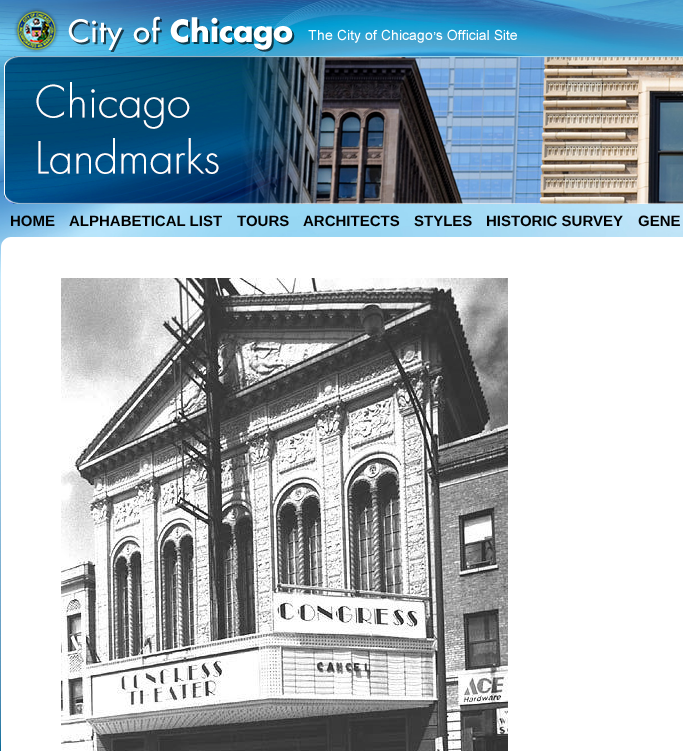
<svg xmlns="http://www.w3.org/2000/svg" xmlns:xlink="http://www.w3.org/1999/xlink" width="683" height="751" viewBox="0 0 683 751">
<style>
.cls-1{font:bold 15px Liberation Sans;fill:#000000}
</style>
<rect width="100%" height="100%" fill="#ffffff"/>
<image xlink:href="image0.png" x="0" y="0" width="683" height="751"/>
<image xlink:href="image1.png" x="14" y="8" width="503" height="45"/>
<image xlink:href="image2.png" x="4" y="56" width="679" height="148"/>
<path fill="#ffffff" d="M11 237H683C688.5 237 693 241.5 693 247V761H1V247C1 241.5 5.5 237 11 237Z"/>
<image xlink:href="image3.png" x="61" y="278" width="447" height="473"/>
<text class="cls-1" x="10" y="226">HOME</text>
<text class="cls-1" x="69" y="226">ALPHABETICAL LIST</text>
<text class="cls-1" x="237" y="226">TOURS</text>
<text class="cls-1" x="303" y="226">ARCHITECTS</text>
<text class="cls-1" x="414" y="226">STYLES</text>
<text class="cls-1" x="486" y="226">HISTORIC SURVEY</text>
<text class="cls-1" x="638" y="226">GENE</text>
</svg>
